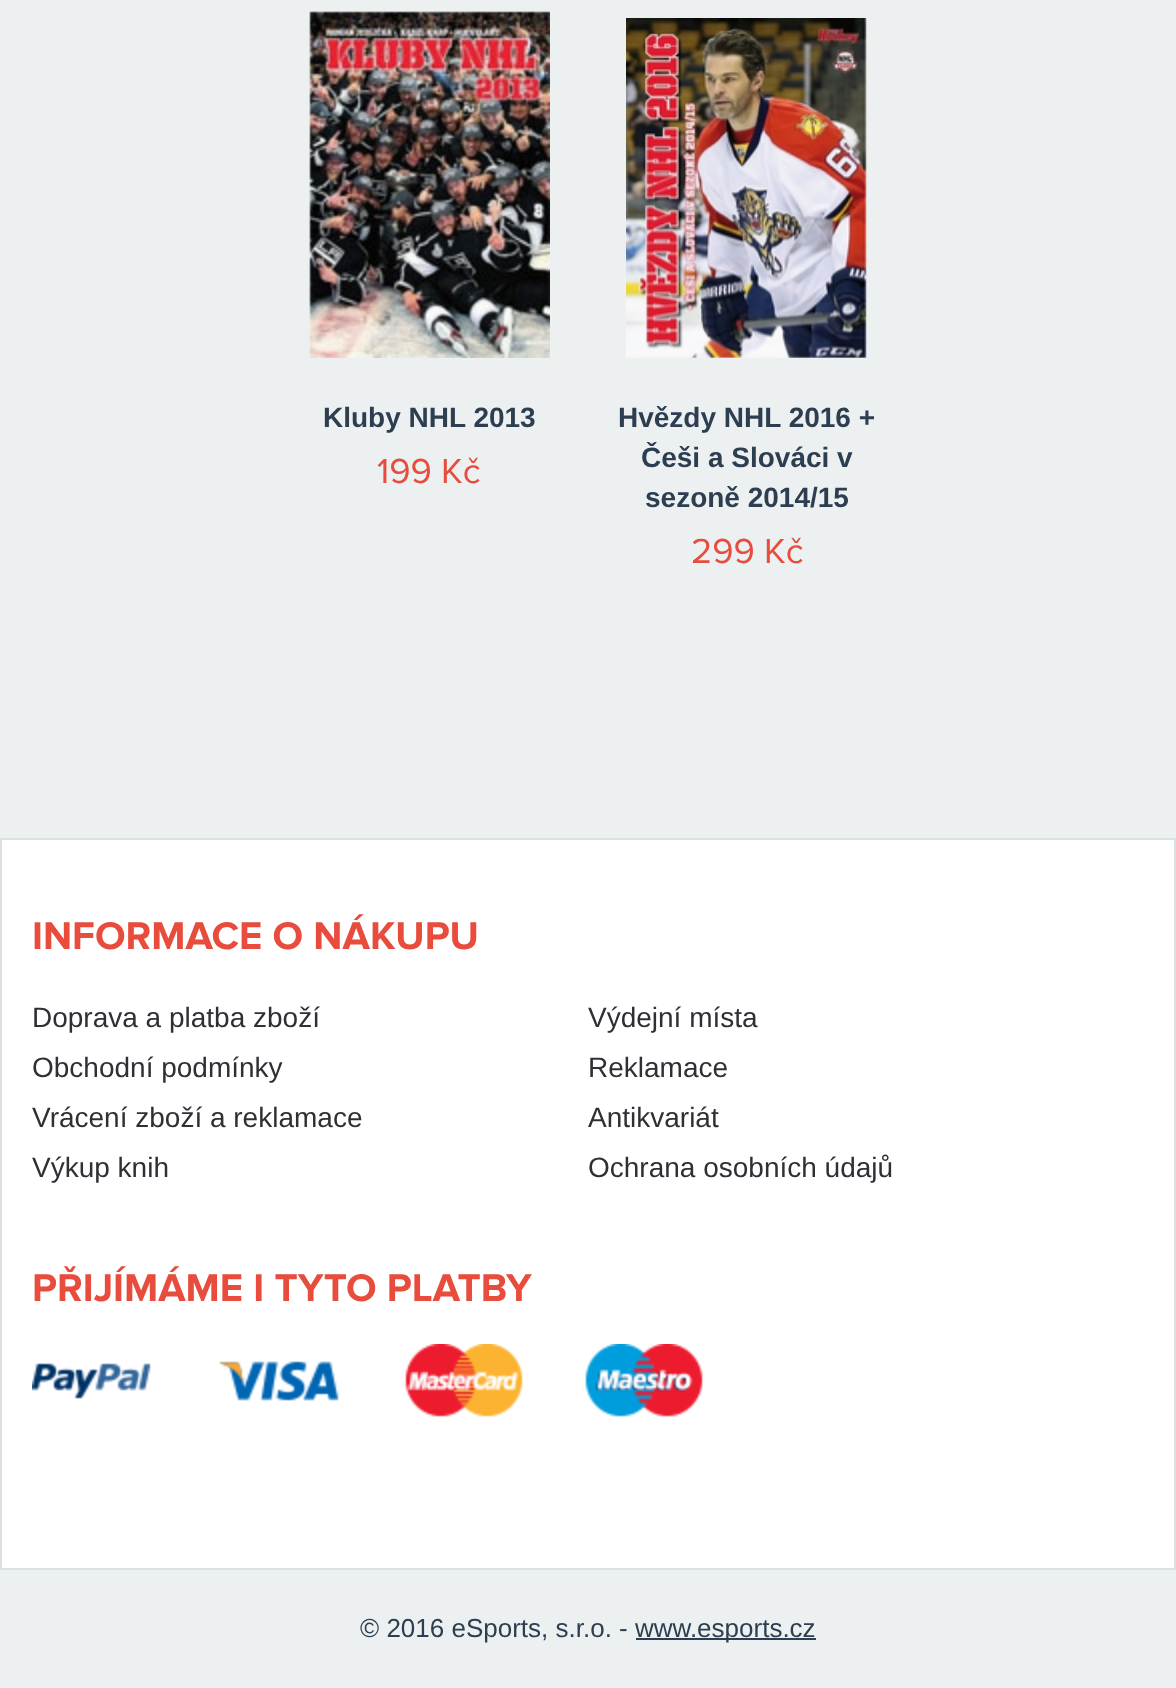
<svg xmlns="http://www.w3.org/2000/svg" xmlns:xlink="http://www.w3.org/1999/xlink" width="1176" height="1688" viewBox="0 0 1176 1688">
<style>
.cls-1{font:bold 28px Liberation Sans;fill:#2c3e50}
.cls-2{font:36px Proxima Nova;fill:#e74c3c}
.cls-3{font:bold 40px Proxima Nova;fill:#e74c3c}
.cls-4{font:28px Liberation Sans;fill:#2e3035}
.cls-5{font:26px Liberation Sans;fill:#2c3e50}
</style>
<rect width="100%" height="100%" fill="#ecf0f1"/>
<image xlink:href="image0.png" x="309" y="11" width="241" height="347"/>
<image xlink:href="image1.png" x="626" y="18" width="241" height="340"/>
<rect fill="#ffffff" stroke="#dbe0e1" stroke-width="2" x="1" y="839" width="1174" height="730"/>
<image xlink:href="image2.png" x="32" y="1344" width="671" height="73"/>
<rect fill="#2c3e50" x="636" y="1638" width="180" height="2"/>
<text class="cls-1" x="323" y="427">Kluby NHL 2013</text>
<text class="cls-2" x="377" y="483">199 Kč</text>
<text class="cls-1" x="618" y="427">Hvězdy NHL 2016 +</text>
<text class="cls-1" x="641" y="467">Češi a Slováci v</text>
<text class="cls-1" x="645" y="507">sezoně 2014/15</text>
<text class="cls-2" x="691" y="563">299 Kč</text>
<text class="cls-3" x="32" y="949">INFORMACE O NÁKUPU</text>
<text class="cls-4" x="32" y="1027">Doprava a platba zboží</text>
<text class="cls-4" x="588" y="1027">Výdejní místa</text>
<text class="cls-4" x="32" y="1077">Obchodní podmínky</text>
<text class="cls-4" x="588" y="1077">Reklamace</text>
<text class="cls-4" x="32" y="1127">Vrácení zboží a reklamace</text>
<text class="cls-4" x="588" y="1127">Antikvariát</text>
<text class="cls-4" x="32" y="1177">Výkup knih</text>
<text class="cls-4" x="588" y="1177">Ochrana osobních údajů</text>
<text class="cls-3" x="32" y="1301">PŘIJÍMÁME I TYTO PLATBY</text>
<text class="cls-5" x="360" y="1637">© 2016 eSports, s.r.o. -</text>
<text class="cls-5" x="635" y="1637">www.esports.cz</text>
</svg>
